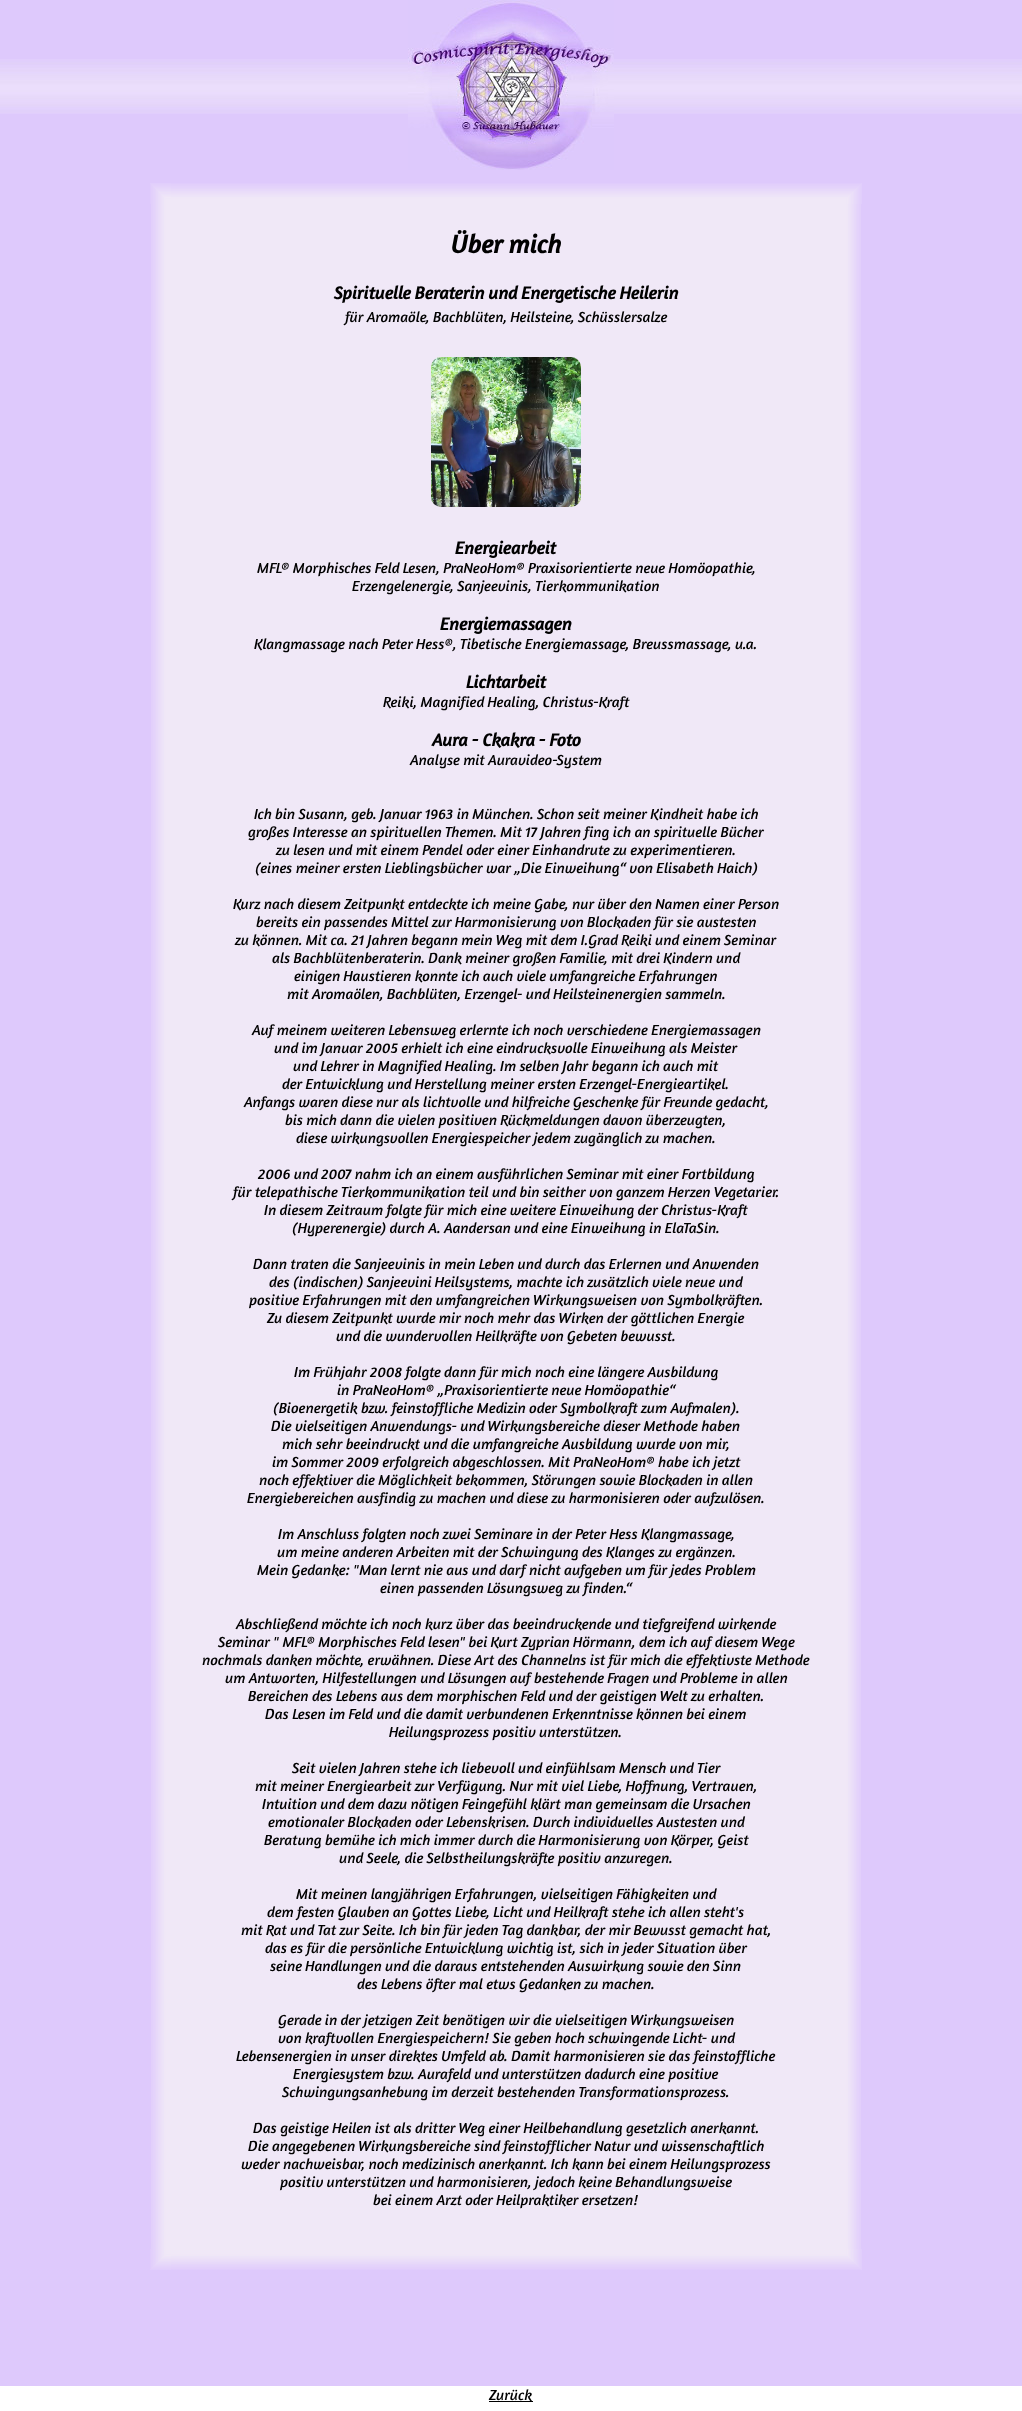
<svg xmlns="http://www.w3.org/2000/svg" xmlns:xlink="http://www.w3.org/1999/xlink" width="1022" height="2411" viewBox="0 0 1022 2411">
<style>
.cls-1{font:italic bold 26px Amaranth;fill:#000000}
.cls-2{font:italic bold 18px Amaranth;fill:#000000}
.cls-3{font:italic 15px Amaranth;fill:#000000}
</style>
<rect width="100%" height="100%" fill="#dec9fc"/>
<image xlink:href="image0.png" x="0" y="59" width="1022" height="55"/>
<image xlink:href="image1.png" x="408" y="0" width="206" height="170"/>
<image xlink:href="image2.png" x="150" y="183" width="712" height="21"/>
<image xlink:href="image3.png" x="151" y="204" width="710" height="2045"/>
<image xlink:href="image4.png" x="431" y="357" width="150" height="150"/>
<image xlink:href="image5.png" x="150" y="2249" width="712" height="21"/>
<rect fill="#ffffff" x="0" y="2386" width="1022" height="25"/>
<rect fill="#000000" x="489" y="2401" width="44" height="1"/>
<text class="cls-1" x="451" y="253">Über mich</text>
<text class="cls-2" x="334" y="299">Spirituelle Beraterin und Energetische Heilerin</text>
<text class="cls-3" x="345" y="322">für Aromaöle, Bachblüten, Heilsteine, Schüsslersalze</text>
<text class="cls-2" x="455" y="554">Energiearbeit</text>
<text class="cls-3" x="257" y="573">MFL® Morphisches Feld Lesen, PraNeoHom® Praxisorientierte neue Homöopathie,</text>
<text class="cls-3" x="352" y="591">Erzengelenergie, Sanjeevinis, Tierkommunikation</text>
<text class="cls-2" x="440" y="630">Energiemassagen</text>
<text class="cls-3" x="254" y="649">Klangmassage nach Peter Hess®, Tibetische Energiemassage, Breussmassage, u.a.</text>
<text class="cls-2" x="466" y="688">Lichtarbeit</text>
<text class="cls-3" x="383" y="707">Reiki, Magnified Healing, Christus-Kraft</text>
<text class="cls-2" x="432" y="746">Aura - Ckakra - Foto</text>
<text class="cls-3" x="410" y="765">Analyse mit Auravideo-System</text>
<text class="cls-3" x="254" y="819">Ich bin Susann, geb. Januar 1963 in München. Schon seit meiner Kindheit habe ich</text>
<text class="cls-3" x="248" y="837">großes Interesse an spirituellen Themen. Mit 17 Jahren fing ich an spirituelle Bücher</text>
<text class="cls-3" x="276" y="855">zu lesen und mit einem Pendel oder einer Einhandrute zu experimentieren.</text>
<text class="cls-3" x="255" y="873">(eines meiner ersten Lieblingsbücher war „Die Einweihung“ von Elisabeth Haich)</text>
<text class="cls-3" x="233" y="909">Kurz nach diesem Zeitpunkt entdeckte ich meine Gabe, nur über den Namen einer Person</text>
<text class="cls-3" x="256" y="927">bereits ein passendes Mittel zur Harmonisierung von Blockaden für sie austesten</text>
<text class="cls-3" x="235" y="945">zu können. Mit ca. 21 Jahren begann mein Weg mit dem I.Grad Reiki und einem Seminar</text>
<text class="cls-3" x="272" y="963">als Bachblütenberaterin. Dank meiner großen Familie, mit drei Kindern und</text>
<text class="cls-3" x="294" y="981">einigen Haustieren konnte ich auch viele umfangreiche Erfahrungen</text>
<text class="cls-3" x="287" y="999">mit Aromaölen, Bachblüten, Erzengel- und Heilsteinenergien sammeln.</text>
<text class="cls-3" x="252" y="1035">Auf meinem weiteren Lebensweg erlernte ich noch verschiedene Energiemassagen</text>
<text class="cls-3" x="274" y="1053">und im Januar 2005 erhielt ich eine eindrucksvolle Einweihung als Meister</text>
<text class="cls-3" x="293" y="1071">und Lehrer in Magnified Healing. Im selben Jahr begann ich auch mit</text>
<text class="cls-3" x="282" y="1089">der Entwicklung und Herstellung meiner ersten Erzengel-Energieartikel.</text>
<text class="cls-3" x="244" y="1107">Anfangs waren diese nur als lichtvolle und hilfreiche Geschenke für Freunde gedacht,</text>
<text class="cls-3" x="285" y="1125">bis mich dann die vielen positiven Rückmeldungen davon überzeugten,</text>
<text class="cls-3" x="296" y="1143">diese wirkungsvollen Energiespeicher jedem zugänglich zu machen.</text>
<text class="cls-3" x="258" y="1179">2006 und 2007 nahm ich an einem ausführlichen Seminar mit einer Fortbildung</text>
<text class="cls-3" x="233" y="1197">für telepathische Tierkommunikation teil und bin seither von ganzem Herzen Vegetarier.</text>
<text class="cls-3" x="264" y="1215">In diesem Zeitraum folgte für mich eine weitere Einweihung der Christus-Kraft</text>
<text class="cls-3" x="292" y="1233">(Hyperenergie) durch A. Aandersan und eine Einweihung in ElaTaSin.</text>
<text class="cls-3" x="253" y="1269">Dann traten die Sanjeevinis in mein Leben und durch das Erlernen und Anwenden</text>
<text class="cls-3" x="269" y="1287">des (indischen) Sanjeevini Heilsystems, machte ich zusätzlich viele neue und</text>
<text class="cls-3" x="249" y="1305">positive Erfahrungen mit den umfangreichen Wirkungsweisen von Symbolkräften.</text>
<text class="cls-3" x="267" y="1323">Zu diesem Zeitpunkt wurde mir noch mehr das Wirken der göttlichen Energie</text>
<text class="cls-3" x="336" y="1341">und die wundervollen Heilkräfte von Gebeten bewusst.</text>
<text class="cls-3" x="294" y="1377">Im Frühjahr 2008 folgte dann für mich noch eine längere Ausbildung</text>
<text class="cls-3" x="337" y="1395">in PraNeoHom® „Praxisorientierte neue Homöopathie“</text>
<text class="cls-3" x="273" y="1413">(Bioenergetik bzw. feinstoffliche Medizin oder Symbolkraft zum Aufmalen).</text>
<text class="cls-3" x="271" y="1431">Die vielseitigen Anwendungs- und Wirkungsbereiche dieser Methode haben</text>
<text class="cls-3" x="282" y="1449">mich sehr beeindruckt und die umfangreiche Ausbildung wurde von mir,</text>
<text class="cls-3" x="272" y="1467">im Sommer 2009 erfolgreich abgeschlossen. Mit PraNeoHom® habe ich jetzt</text>
<text class="cls-3" x="259" y="1485">noch effektiver die Möglichkeit bekommen, Störungen sowie Blockaden in allen</text>
<text class="cls-3" x="247" y="1503">Energiebereichen ausfindig zu machen und diese zu harmonisieren oder aufzulösen.</text>
<text class="cls-3" x="278" y="1539">Im Anschluss folgten noch zwei Seminare in der Peter Hess Klangmassage,</text>
<text class="cls-3" x="277" y="1557">um meine anderen Arbeiten mit der Schwingung des Klanges zu ergänzen.</text>
<text class="cls-3" x="257" y="1575">Mein Gedanke: "Man lernt nie aus und darf nicht aufgeben um für jedes Problem</text>
<text class="cls-3" x="380" y="1593">einen passenden Lösungsweg zu finden.“</text>
<text class="cls-3" x="236" y="1629">Abschließend möchte ich noch kurz über das beeindruckende und tiefgreifend wirkende</text>
<text class="cls-3" x="218" y="1647">Seminar " MFL® Morphisches Feld lesen" bei Kurt Zyprian Hörmann, dem ich auf diesem Wege</text>
<text class="cls-3" x="202" y="1665">nochmals danken möchte, erwähnen. Diese Art des Channelns ist für mich die effektivste Methode</text>
<text class="cls-3" x="225" y="1683">um Antworten, Hilfestellungen und Lösungen auf bestehende Fragen und Probleme in allen</text>
<text class="cls-3" x="248" y="1701">Bereichen des Lebens aus dem morphischen Feld und der geistigen Welt zu erhalten.</text>
<text class="cls-3" x="265" y="1719">Das Lesen im Feld und die damit verbundenen Erkenntnisse können bei einem</text>
<text class="cls-3" x="389" y="1737">Heilungsprozess positiv unterstützen.</text>
<text class="cls-3" x="292" y="1773">Seit vielen Jahren stehe ich liebevoll und einfühlsam Mensch und Tier</text>
<text class="cls-3" x="255" y="1791">mit meiner Energiearbeit zur Verfügung. Nur mit viel Liebe, Hoffnung, Vertrauen,</text>
<text class="cls-3" x="262" y="1809">Intuition und dem dazu nötigen Feingefühl klärt man gemeinsam die Ursachen</text>
<text class="cls-3" x="268" y="1827">emotionaler Blockaden oder Lebenskrisen. Durch individuelles Austesten und</text>
<text class="cls-3" x="264" y="1845">Beratung bemühe ich mich immer durch die Harmonisierung von Körper, Geist</text>
<text class="cls-3" x="339" y="1863">und Seele, die Selbstheilungskräfte positiv anzuregen.</text>
<text class="cls-3" x="296" y="1899">Mit meinen langjährigen Erfahrungen, vielseitigen Fähigkeiten und</text>
<text class="cls-3" x="267" y="1917">dem festen Glauben an Gottes Liebe, Licht und Heilkraft stehe ich allen steht's</text>
<text class="cls-3" x="241" y="1935">mit Rat und Tat zur Seite. Ich bin für jeden Tag dankbar, der mir Bewusst gemacht hat,</text>
<text class="cls-3" x="265" y="1953">das es für die persönliche Entwicklung wichtig ist, sich in jeder Situation über</text>
<text class="cls-3" x="270" y="1971">seine Handlungen und die daraus entstehenden Auswirkung sowie den Sinn</text>
<text class="cls-3" x="357" y="1989">des Lebens öfter mal etws Gedanken zu machen.</text>
<text class="cls-3"><tspan x="278" y="2025">Gerade in der jetzigen Zeit benötigen wir die vielseitigen Wirkungsweisen</tspan><tspan x="278" y="2043">von kraftvollen Energiespeichern! Sie geben hoch schwingende Licht- und</tspan></text>
<text class="cls-3" x="236" y="2061">Lebensenergien in unser direktes Umfeld ab. Damit harmonisieren sie das feinstoffliche</text>
<text class="cls-3" x="293" y="2079">Energiesystem bzw. Aurafeld und unterstützen dadurch eine positive</text>
<text class="cls-3" x="282" y="2097">Schwingungsanhebung im derzeit bestehenden Transformationsprozess.</text>
<text class="cls-3" x="253" y="2133">Das geistige Heilen ist als dritter Weg einer Heilbehandlung gesetzlich anerkannt.</text>
<text class="cls-3" x="248" y="2151">Die angegebenen Wirkungsbereiche sind feinstofflicher Natur und wissenschaftlich</text>
<text class="cls-3" x="241" y="2169">weder nachweisbar, noch medizinisch anerkannt. Ich kann bei einem Heilungsprozess</text>
<text class="cls-3" x="280" y="2187">positiv unterstützen und harmonisieren, jedoch keine Behandlungsweise</text>
<text class="cls-3" x="373" y="2205">bei einem Arzt oder Heilpraktiker ersetzen!</text>
<text class="cls-3" x="489" y="2400">Zurück</text>
</svg>
